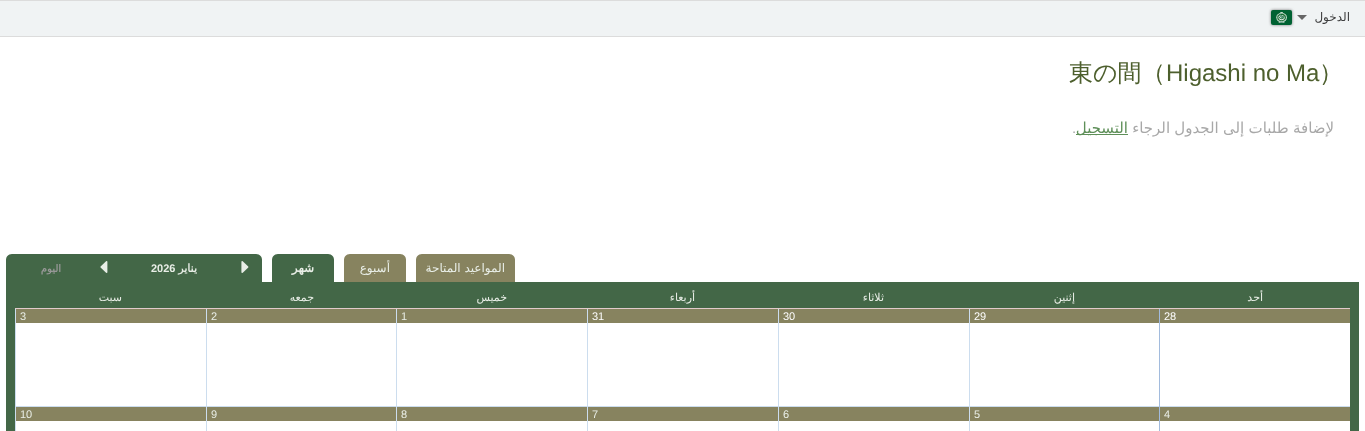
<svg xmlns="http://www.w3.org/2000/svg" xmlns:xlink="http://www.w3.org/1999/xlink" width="1365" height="431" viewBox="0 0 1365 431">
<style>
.cls-1{font:12px DejaVu Sans;direction:rtl;fill:#3c3c3d}
.cls-2{font:500 24px WenQuanYi Zen Hei;fill:#4d5f2d}
.cls-3{font:24px Liberation Sans;fill:#4d5f2d}
.cls-4{font:15px DejaVu Sans;direction:rtl;fill:#a8a8a8}
.cls-5{font:15px DejaVu Sans;direction:rtl;fill:#5e8f58}
.cls-6{font:15px Liberation Sans;fill:#a8a8a8}
.cls-7{font:12px DejaVu Sans;direction:rtl;fill:#e9eee7}
.cls-8{font:bold 12px DejaVu Sans;direction:rtl;fill:#e9eee7}
.cls-9{font:bold 11px DejaVu Sans;direction:rtl;fill:#e9eee7}
.cls-10{font:bold 11px Liberation Sans;fill:#e9eee7}
.cls-11{font:bold 10px DejaVu Sans;direction:rtl;fill:#999999}
.cls-12{font:11px DejaVu Sans;direction:rtl;fill:#e9eee7}
.cls-13{font:11px Liberation Sans;fill:#fdfdfd}
.cls-14{font:11px Liberation Sans;fill:#e9eee7}
</style>
<rect width="100%" height="100%" fill="#ffffff"/>
<rect fill="#f0f3f4" x="0" y="1" width="1365" height="35"/>
<rect fill="#dcdcdc" x="0" y="0" width="1365" height="1"/>
<rect fill="#dcdcdc" x="0" y="36" width="1365" height="1"/>
<rect fill="#777777" filter="blur(1.5px)" x="1271" y="10" width="21" height="15" rx="2"/>
<path fill="#666666" d="M1297 15H1307L1302 20Z"/>
<image xlink:href="image0.png" x="1271" y="10" width="21" height="15"/>
<rect fill="#5e8f58" x="1076" y="134" width="52" height="1"/>
<path fill="#87835f" d="M422 254H509C512.5 254 515 256.5 515 260V282H416V260C416 256.5 418.5 254 422 254Z"/>
<path fill="#87835f" d="M350 254H400C403.5 254 406 256.5 406 260V282H344V260C344 256.5 346.5 254 350 254Z"/>
<path fill="#436747" d="M278 254H328C331.5 254 334 256.5 334 260V282H272V260C272 256.5 274.5 254 278 254Z"/>
<path fill="#436747" d="M12 254H256C259.5 254 262 256.5 262 260V282H6V260C6 256.5 8.5 254 12 254Z"/>
<image xlink:href="image1.png" x="241" y="261" width="8" height="12"/>
<image xlink:href="image2.png" x="100" y="261" width="8" height="12"/>
<path fill="none" stroke="#436747" stroke-width="9" d="M10.5 286.5H1354.5V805.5H10.5Z"/>
<rect fill="#436747" x="15" y="291" width="1335" height="17"/>
<rect fill="#e1cbcb" x="15" y="308" width="1335" height="1"/>
<rect fill="#ccddee" x="15" y="406" width="1335" height="1"/>
<rect fill="#a2bbdd" x="1159" y="309" width="1" height="122"/>
<rect fill="#87835f" x="1160" y="309" width="190" height="14"/>
<rect fill="#ccddee" x="969" y="309" width="1" height="122"/>
<rect fill="#87835f" x="970" y="309" width="189" height="14"/>
<rect fill="#ccddee" x="778" y="309" width="1" height="122"/>
<rect fill="#87835f" x="779" y="309" width="190" height="14"/>
<rect fill="#ccddee" x="587" y="309" width="1" height="122"/>
<rect fill="#87835f" x="588" y="309" width="190" height="14"/>
<rect fill="#ccddee" x="396" y="309" width="1" height="122"/>
<rect fill="#87835f" x="397" y="309" width="190" height="14"/>
<rect fill="#ccddee" x="206" y="309" width="1" height="122"/>
<rect fill="#87835f" x="207" y="309" width="189" height="14"/>
<rect fill="#ccddee" x="15" y="309" width="1" height="122"/>
<rect fill="#87835f" x="16" y="309" width="190" height="14"/>
<rect fill="#87835f" x="1160" y="407" width="190" height="14"/>
<rect fill="#87835f" x="970" y="407" width="189" height="14"/>
<rect fill="#87835f" x="779" y="407" width="190" height="14"/>
<rect fill="#87835f" x="588" y="407" width="190" height="14"/>
<rect fill="#87835f" x="397" y="407" width="190" height="14"/>
<rect fill="#87835f" x="207" y="407" width="189" height="14"/>
<rect fill="#87835f" x="16" y="407" width="190" height="14"/>
<text class="cls-1" x="1350" y="21">الدخول</text>
<text class="cls-2" x="1319" y="81">）</text>
<text class="cls-3" x="1166" y="81">Higashi no Ma</text>
<text class="cls-2" x="1069" y="81">東の間（</text>
<text class="cls-4" x="1334" y="133" word-spacing="-0.5">لإضافة طلبات إلى الجدول الرجاء</text>
<text class="cls-5" x="1128" y="133">التسجيل</text>
<text class="cls-6" x="1072" y="133">.</text>
<text class="cls-7" x="505" y="272">المواعيد المتاحة</text>
<text class="cls-7" x="390" y="272">أسبوع</text>
<text class="cls-8" x="314" y="272">شهر</text>
<text class="cls-9" x="197" y="272">يناير</text>
<text class="cls-10" x="151" y="272">2026</text>
<text class="cls-11" x="61" y="272">اليوم</text>
<text class="cls-12" x="1263" y="301">أحد</text>
<text class="cls-12" x="1075" y="301">إثنين</text>
<text class="cls-12" x="884" y="301">ثلاثاء</text>
<text class="cls-12" x="695" y="301">أربعاء</text>
<text class="cls-12" x="507" y="301">خميس</text>
<text class="cls-12" x="314" y="301">جمعه</text>
<text class="cls-12" x="122" y="301">سبت</text>
<text class="cls-13" x="1164" y="320">28</text>
<text class="cls-13" x="974" y="320">29</text>
<text class="cls-13" x="783" y="320">30</text>
<text class="cls-13" x="592" y="320">31</text>
<text class="cls-14" x="401" y="320">1</text>
<text class="cls-14" x="211" y="320">2</text>
<text class="cls-14" x="20" y="320">3</text>
<text class="cls-14" x="1164" y="418">4</text>
<text class="cls-14" x="974" y="418">5</text>
<text class="cls-14" x="783" y="418">6</text>
<text class="cls-14" x="592" y="418">7</text>
<text class="cls-14" x="401" y="418">8</text>
<text class="cls-14" x="211" y="418">9</text>
<text class="cls-14" x="20" y="418">10</text>
</svg>
